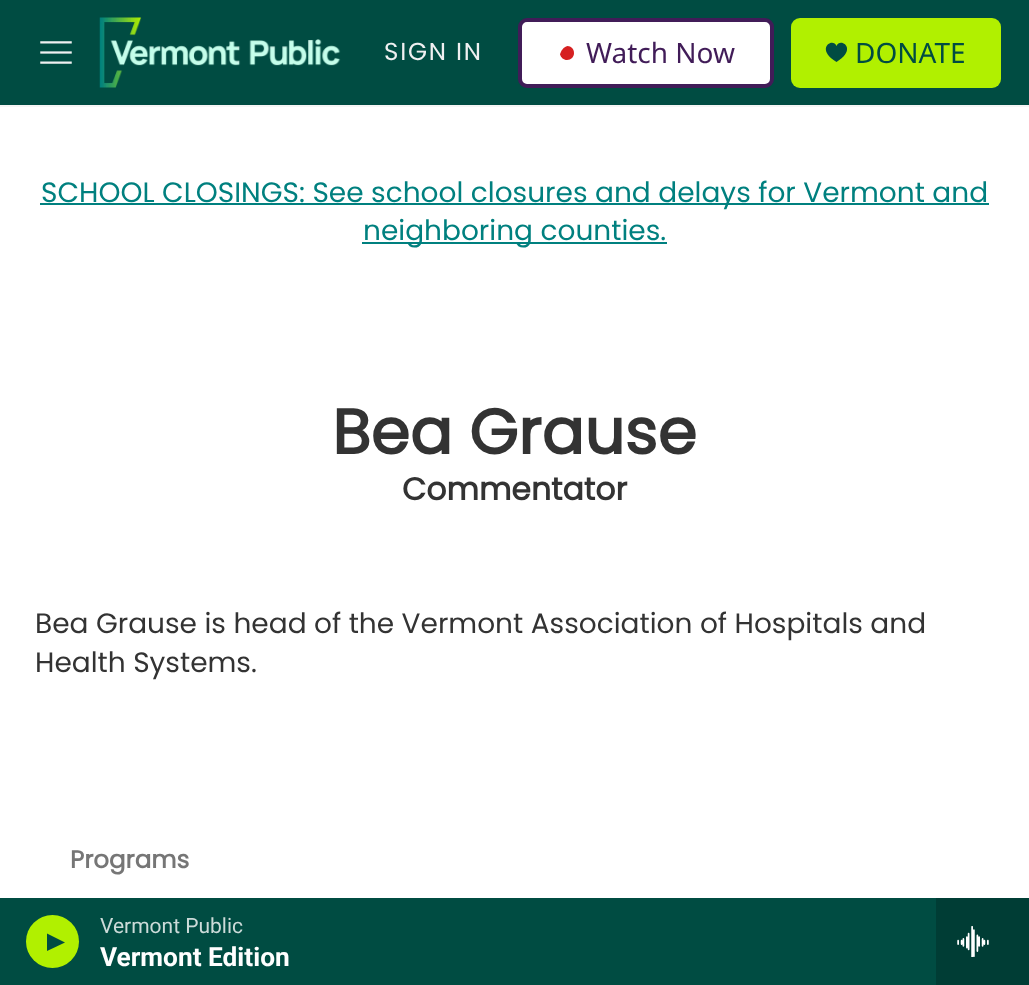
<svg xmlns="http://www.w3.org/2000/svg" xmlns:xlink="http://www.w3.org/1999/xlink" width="1029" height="985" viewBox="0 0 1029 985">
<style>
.cls-1{font:24.5px Poppins;letter-spacing:1.75px;fill:#eff0f1}
.cls-2{font:28px Noto Sans;fill:#411c58}
.cls-3{font:28px Noto Sans;fill:#004c42}
.cls-4{font:21px Roboto;fill:#ccdbd9}
.cls-5{font:bold 26.25px Roboto;fill:#ffffff}
.cls-6{font:28px Poppins;fill:#00807f}
.cls-7{font:bold 63px Poppins;fill:#333333}
.cls-8{font:bold 31.5px Poppins;fill:#333333}
.cls-9{font:28px Poppins;fill:#333333}
.cls-10{font:bold 24.5px Poppins;fill:#767676}
</style>
<rect width="100%" height="100%" fill="#ffffff"/>
<rect fill="#004c42" x="0" y="0" width="1029" height="105"/>
<rect fill="#f5f5f5" x="0" y="105" width="1029" height="2"/>
<image xlink:href="image0.png" x="40" y="41" width="32" height="23"/>
<image xlink:href="image1.png" x="99" y="17" width="242" height="71"/>
<rect fill="#ffffff" stroke="#411c58" stroke-width="4" x="520" y="20" width="252" height="66" rx="7"/>
<path fill="#d62021" d="M567.5 46C571 46 574 49 574 53C574 57 571 60 567 60C563.5 60 561 57.5 560 54.5C561 50.5 563.5 47 567.5 46Z"/>
<rect fill="#b1f000" x="791" y="18" width="210" height="70" rx="9"/>
<path fill="#004c42" d="M836.5 46C833 37 814.5 48.5 836.5 62C858.5 48.5 840 37 836.5 46Z"/>
<rect fill="#004c42" x="0" y="898" width="936" height="87"/>
<circle fill="#b1f000" cx="52.5" cy="941.5" r="26.5"/>
<path fill="#004c42" d="M47 933.5L65 942.5L47 951Z"/>
<rect fill="#003d35" x="936" y="898" width="93" height="87"/>
<image xlink:href="image2.png" x="957" y="926" width="32" height="31"/>
<rect fill="#00807f" x="40" y="203" width="949" height="2"/>
<rect fill="#00807f" x="362" y="242" width="305" height="2"/>
<text class="cls-1" x="384" y="60">SIGN IN</text>
<text class="cls-2" x="586" y="63">Watch Now</text>
<text class="cls-3" x="855" y="63">DONATE</text>
<text class="cls-4" x="100" y="933">Vermont Public</text>
<text class="cls-5" x="100" y="966">Vermont Edition</text>
<text class="cls-6" x="41" y="202">SCHOOL CLOSINGS: See school closures and delays for Vermont and</text>
<text class="cls-6" x="363" y="240">neighboring counties.</text>
<text class="cls-7" x="332" y="454">Bea Grause</text>
<text class="cls-8" x="402" y="500">Commentator</text>
<text class="cls-9"><tspan x="35" y="633">Bea Grause is head of the Vermont Association of Hospitals and</tspan><tspan x="35" y="672">Health Systems.</tspan></text>
<text class="cls-10" x="70" y="868">Programs</text>
</svg>
